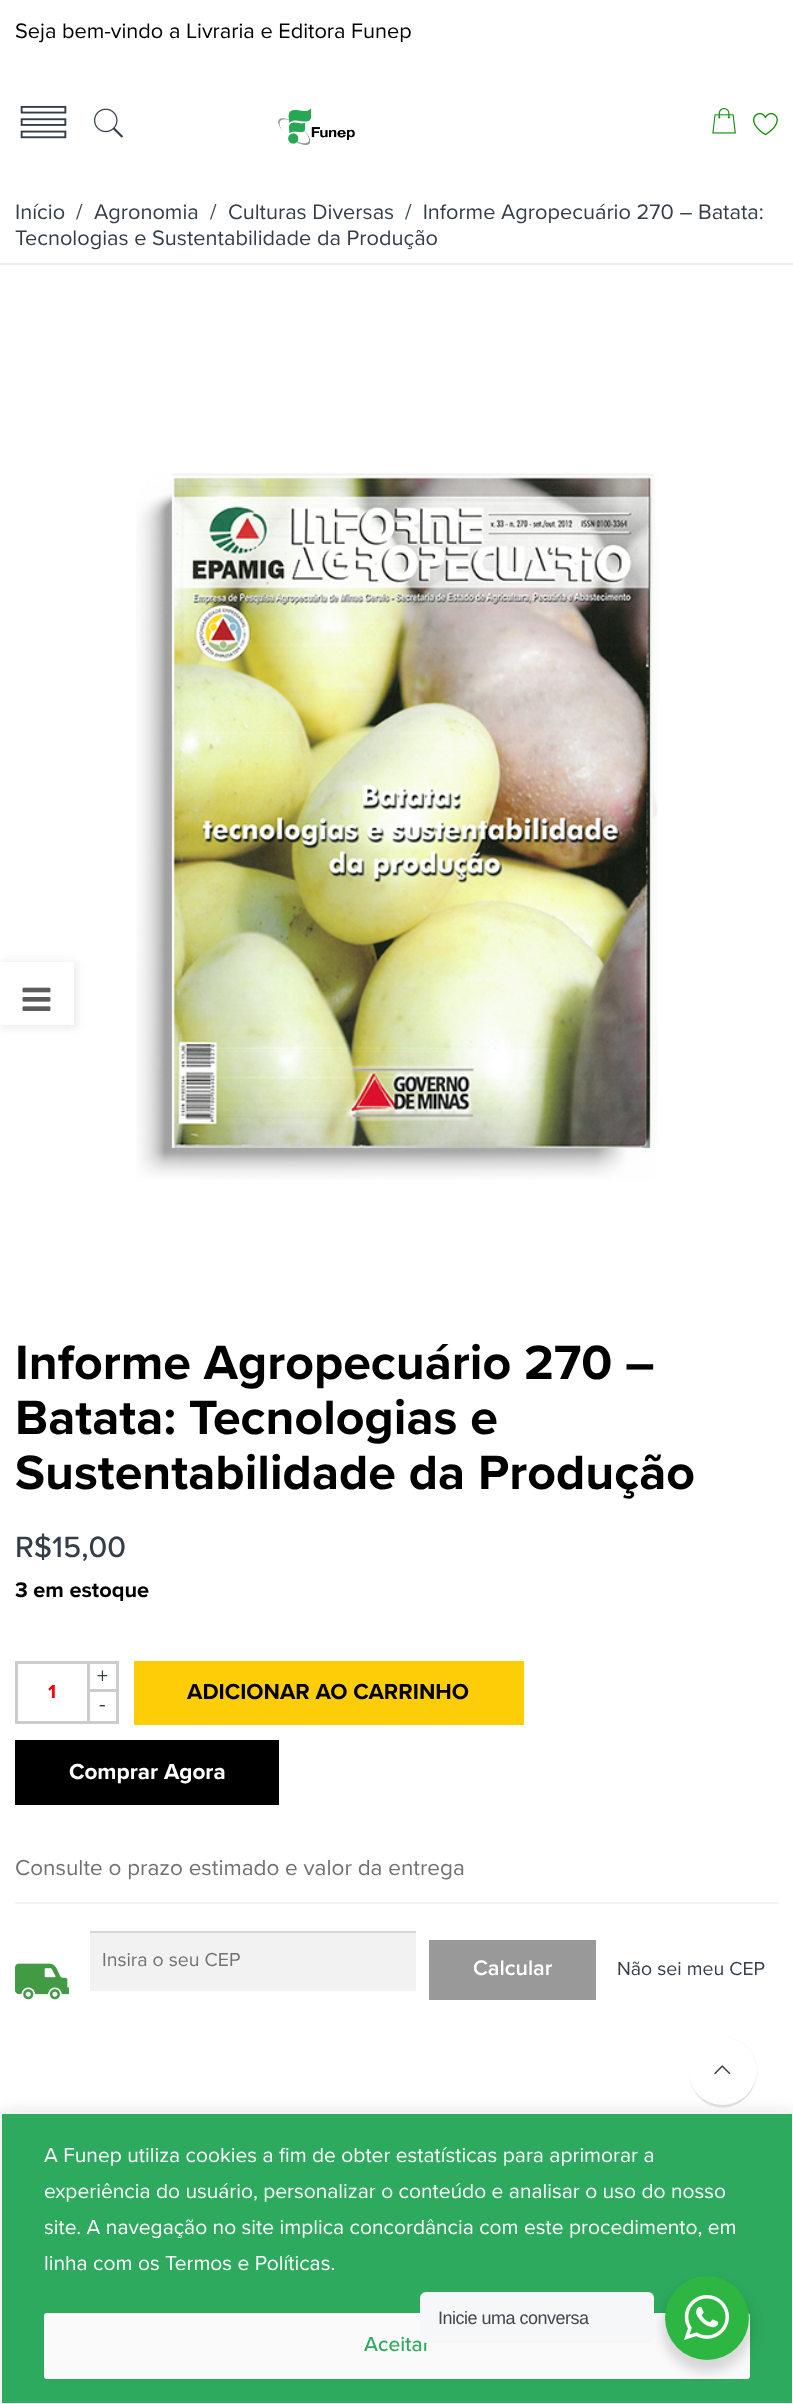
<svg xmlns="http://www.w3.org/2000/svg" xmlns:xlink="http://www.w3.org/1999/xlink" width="793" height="2404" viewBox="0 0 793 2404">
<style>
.cls-1{font:21.75px Proxima Nova;fill:#000000}
.cls-2{font:21.75px Proxima Nova;fill:#333e48}
.cls-3{font:bold 50px Proxima Nova;fill:#000000}
.cls-4{font:500 30.5px Proxima Nova;fill:#333e48}
.cls-5{font:bold 21.75px Proxima Nova;fill:#000000}
.cls-6{font:bold 19.5px Proxima Nova;fill:#fb0000}
.cls-7{font:bold 22.5px Proxima Nova;fill:#000000}
.cls-8{font:bold 22.5px Proxima Nova;fill:#ffffff}
.cls-9{font:22.5px Proxima Nova;fill:#717171}
.cls-10{font:19.5px Proxima Nova;fill:#717171}
.cls-11{font:600 21.75px Proxima Nova;fill:#ffffff}
.cls-12{font:19.5px Proxima Nova;fill:#333e48}
.cls-13{font:21px Proxima Nova;fill:#ffffff}
.cls-14{font:500 21px Proxima Nova;fill:#2eaa5f}
.cls-15{font:18px Liberation Sans;letter-spacing:-0.5px;fill:#43474e}
</style>
<rect width="100%" height="100%" fill="#ffffff"/>
<image xlink:href="image0.png" x="20" y="105" width="47" height="34"/>
<image xlink:href="image1.png" x="94" y="108" width="30" height="30"/>
<image xlink:href="image2.png" x="278" y="108" width="77" height="37"/>
<image xlink:href="image3.png" x="712" y="108" width="24" height="26"/>
<image xlink:href="image4.png" x="753" y="112" width="25" height="24"/>
<rect fill="#efefef" x="0" y="263" width="793" height="2"/>
<rect fill="#333333" fill-opacity="0.1" filter="blur(4px)" x="0" y="962" width="77" height="66"/>
<rect fill="#ffffff" x="0" y="962" width="74" height="63"/>
<image xlink:href="image5.png" x="22" y="987" width="29" height="24"/>
<image xlink:href="image6.png" x="136" y="473" width="522" height="707"/>
<rect fill="none" stroke="#cccccc" stroke-width="3" x="16.5" y="1662.5" width="72" height="60"/>
<rect fill="none" stroke="#cccccc" stroke-width="3" x="88.5" y="1662.5" width="29" height="28"/>
<rect fill="#cccccc" x="116" y="1692" width="3" height="32"/>
<rect fill="#cccccc" x="87" y="1721" width="32" height="3"/>
<rect fill="#fdce07" x="134" y="1661" width="390" height="64"/>
<rect fill="#000000" x="15" y="1740" width="264" height="65"/>
<rect fill="#f2f2f2" x="15" y="1902" width="764" height="2"/>
<image xlink:href="image7.png" x="15" y="1963" width="54" height="37"/>
<rect fill="#f2f2f2" x="90" y="1933" width="326" height="58"/>
<rect fill="#d4d4d4" x="90" y="1931" width="326" height="2"/>
<rect fill="#999999" x="429" y="1940" width="167" height="60"/>
<circle fill="none" stroke="#f5f5f5" stroke-width="0.8" cx="723.5" cy="2071.5" r="34.1"/>
<path fill="#000000" fill-opacity="0.1" d="M689 2077C690 2083 692 2089 696 2094C716 2121 757 2105 756 2072C754 2112 697 2116 689 2077Z"/>
<rect fill="#ffffff" x="689" y="2037" width="67" height="68" rx="33.5"/>
<image xlink:href="image8.png" x="714" y="2065" width="17" height="10"/>
<rect fill="#acabab" fill-opacity="0.3" filter="blur(7.5px)" x="0" y="2111" width="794" height="292"/>
<rect fill="#2eaa5f" stroke="#f4f4f4" stroke-width="2" x="1" y="2113" width="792" height="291"/>
<rect fill="#fafafa" stroke="#fafafa" stroke-width="3" x="45.5" y="2314.5" width="703" height="63" rx="1.5"/>
<rect fill="#000000" fill-opacity="0.14" filter="blur(6px)" x="662" y="2282" width="90" height="90" rx="45"/>
<circle fill="#2db742" cx="707" cy="2318" r="42"/>
<image xlink:href="image9.png" x="684" y="2295" width="45" height="45"/>
<text class="cls-1" x="15" y="38">Seja bem-vindo a Livraria e Editora Funep</text>
<text class="cls-2" x="15" y="219">Início</text>
<text class="cls-2" x="76" y="219">/</text>
<text class="cls-2" x="94" y="219">Agronomia</text>
<text class="cls-2" x="210" y="219">/</text>
<text class="cls-2" x="228" y="219">Culturas Diversas</text>
<text class="cls-2" xml:space="preserve" x="405" y="219">/  Informe Agropecuário 270 – Batata:</text>
<text class="cls-2" x="15" y="245">Tecnologias e Sustentabilidade da Produção</text>
<text class="cls-3"><tspan x="15" y="1379">Informe Agropecuário 270 –</tspan><tspan x="15" y="1434">Batata: Tecnologias e</tspan><tspan x="15" y="1489">Sustentabilidade da Produção</tspan></text>
<text class="cls-4" x="15" y="1557">R$15,00</text>
<text class="cls-5" x="15" y="1597">3 em estoque</text>
<text class="cls-2" x="97" y="1683">+</text>
<text class="cls-6" x="48" y="1698">1</text>
<text class="cls-2" x="99" y="1711">-</text>
<text class="cls-7" x="187" y="1699">ADICIONAR AO CARRINHO</text>
<text class="cls-8" x="69" y="1779">Comprar Agora</text>
<text class="cls-9" x="15" y="1875">Consulte o prazo estimado e valor da entrega</text>
<text class="cls-10" x="102" y="1966">Insira o seu CEP</text>
<text class="cls-11" x="473" y="1975">Calcular</text>
<text class="cls-12" x="617" y="1975">Não sei meu CEP</text>
<text class="cls-13"><tspan x="44" y="2162">A Funep utiliza cookies a fim de obter estatísticas para aprimorar a</tspan><tspan x="44" y="2198">experiência do usuário, personalizar o conteúdo e analisar o uso do nosso</tspan><tspan x="44" y="2234">site. A navegação no site implica concordância com este procedimento, em</tspan><tspan x="44" y="2270">linha com os Termos e Políticas.</tspan></text>
<text class="cls-14" x="364" y="2351">Aceitar</text>
<rect fill="#f5f7f9" x="420" y="2292" width="234" height="51" rx="6"/>
<text class="cls-15" x="438" y="2324">Inicie uma conversa</text>
</svg>
